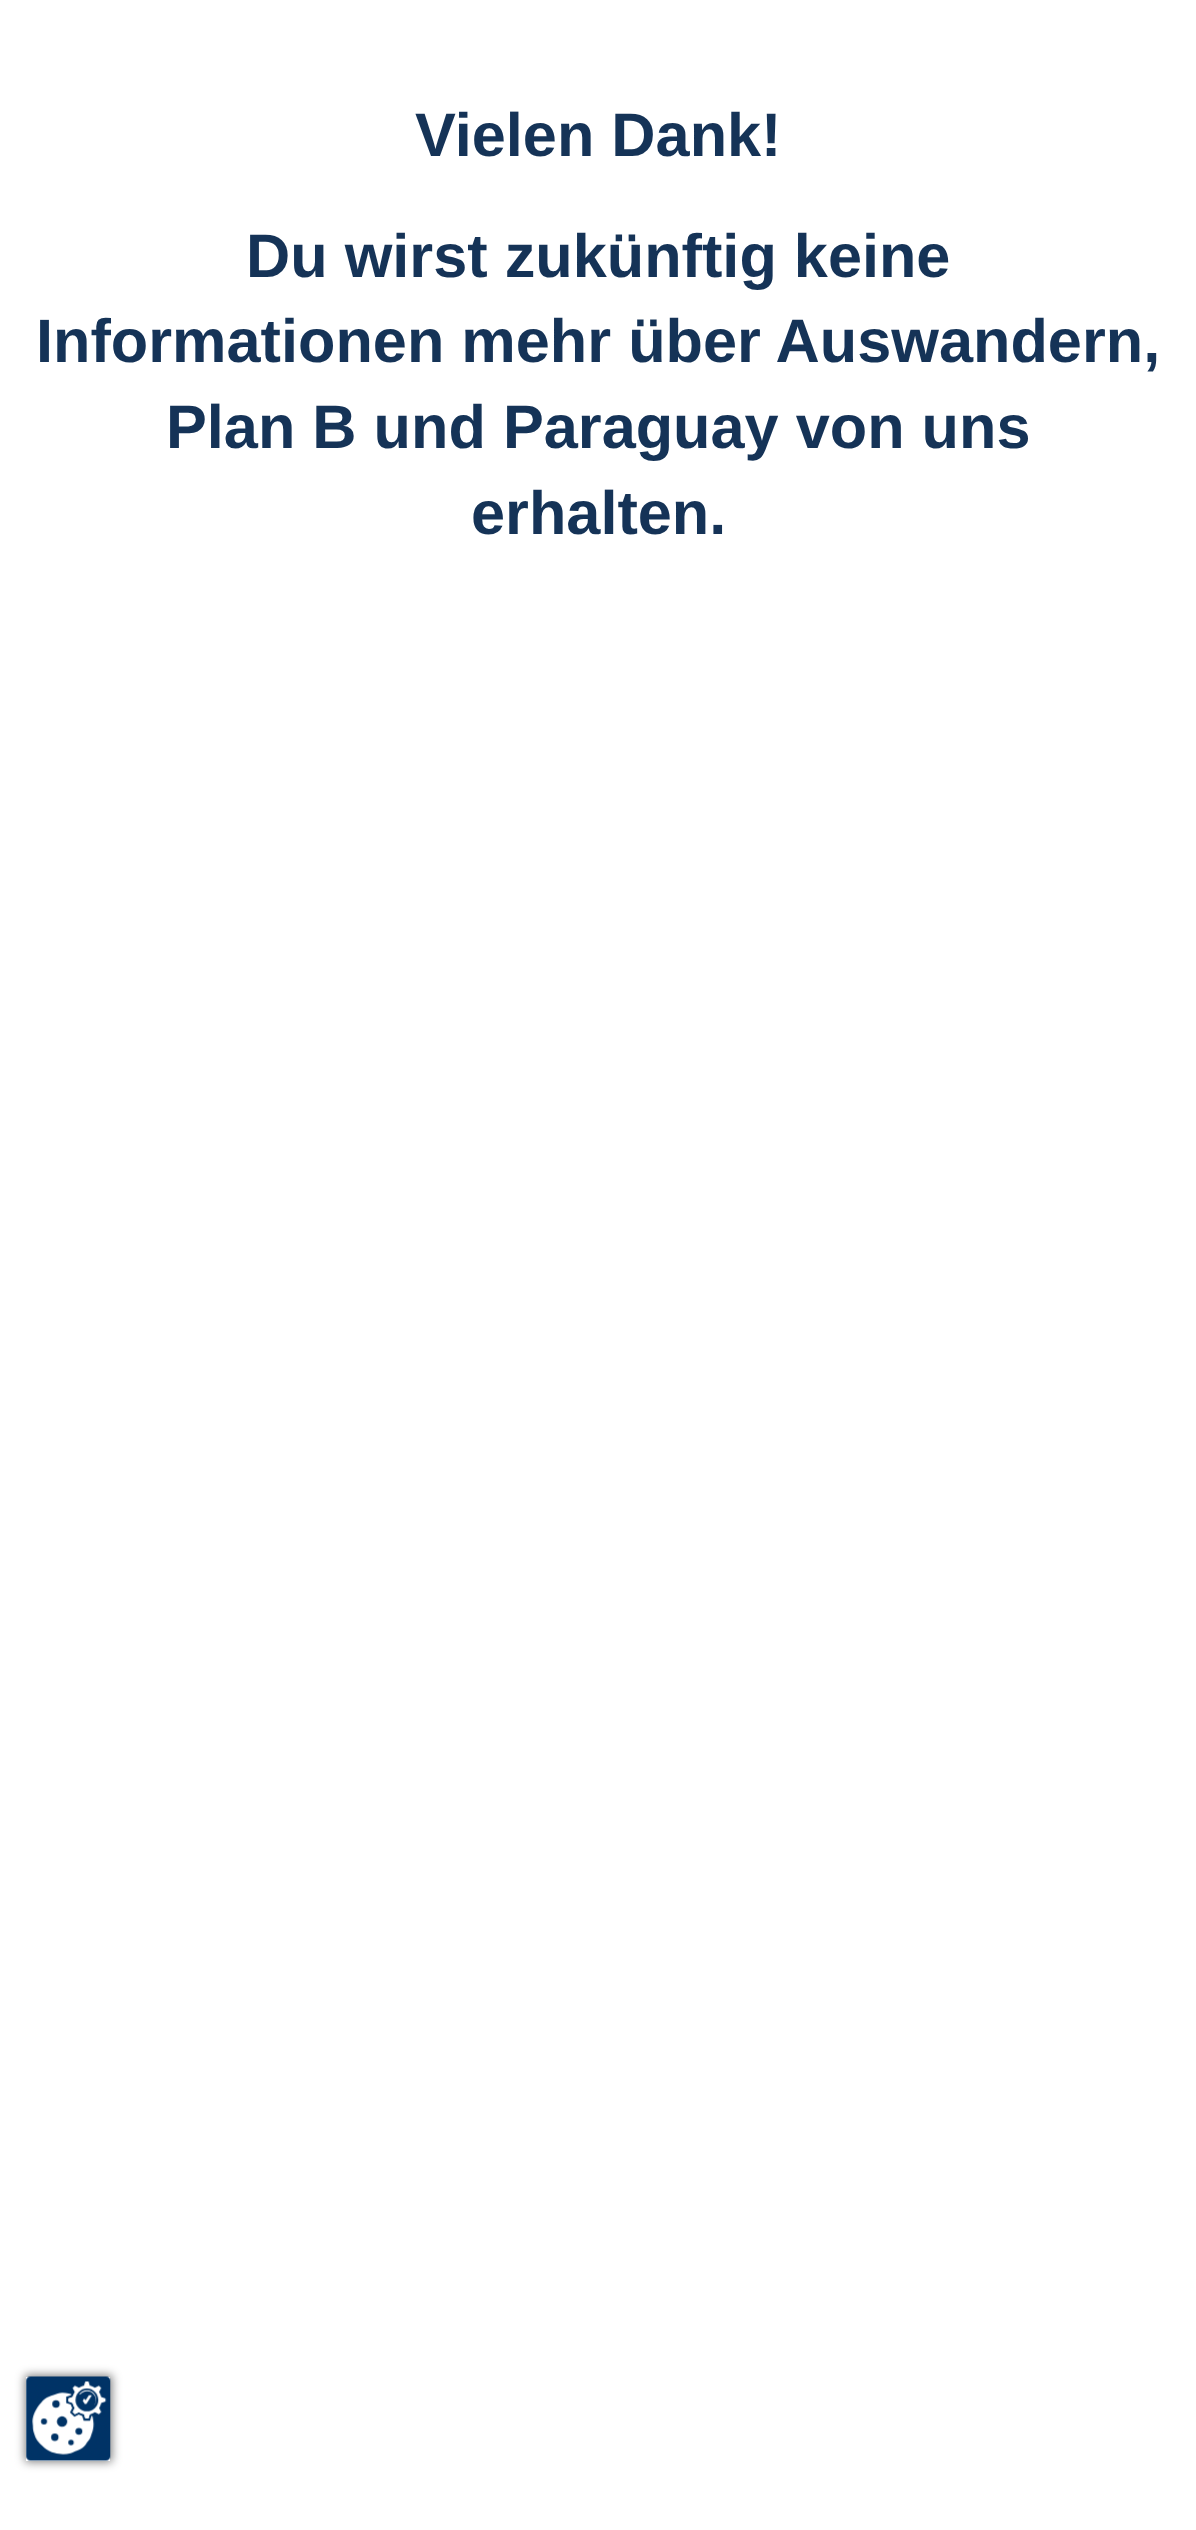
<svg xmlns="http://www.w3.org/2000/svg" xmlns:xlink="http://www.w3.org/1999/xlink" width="1196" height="2530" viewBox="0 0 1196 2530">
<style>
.cls-1{font:bold 61.25px Liberation Sans;fill:#153357}
</style>
<defs>
<clipPath id="clip1"><path d="M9 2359H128V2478H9ZM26 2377H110V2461H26Z" clip-rule="evenodd"/></clipPath>
</defs>
<rect width="100%" height="100%" fill="#ffffff"/>
<g clip-path="url(#clip1)">
<rect fill="#000000" fill-opacity="0.5" filter="blur(5px)" x="25" y="2375" width="87" height="87"/>
</g>
<image xlink:href="image0.png" x="26" y="2376" width="85" height="85"/>
<text class="cls-1" x="415" y="156">Vielen Dank!</text>
<text class="cls-1" x="246" y="277">Du wirst zukünftig keine</text>
<text class="cls-1" x="36" y="362">Informationen mehr über Auswandern,</text>
<text class="cls-1" x="166" y="448">Plan B und Paraguay von uns</text>
<text class="cls-1" x="471" y="534">erhalten.</text>
</svg>
